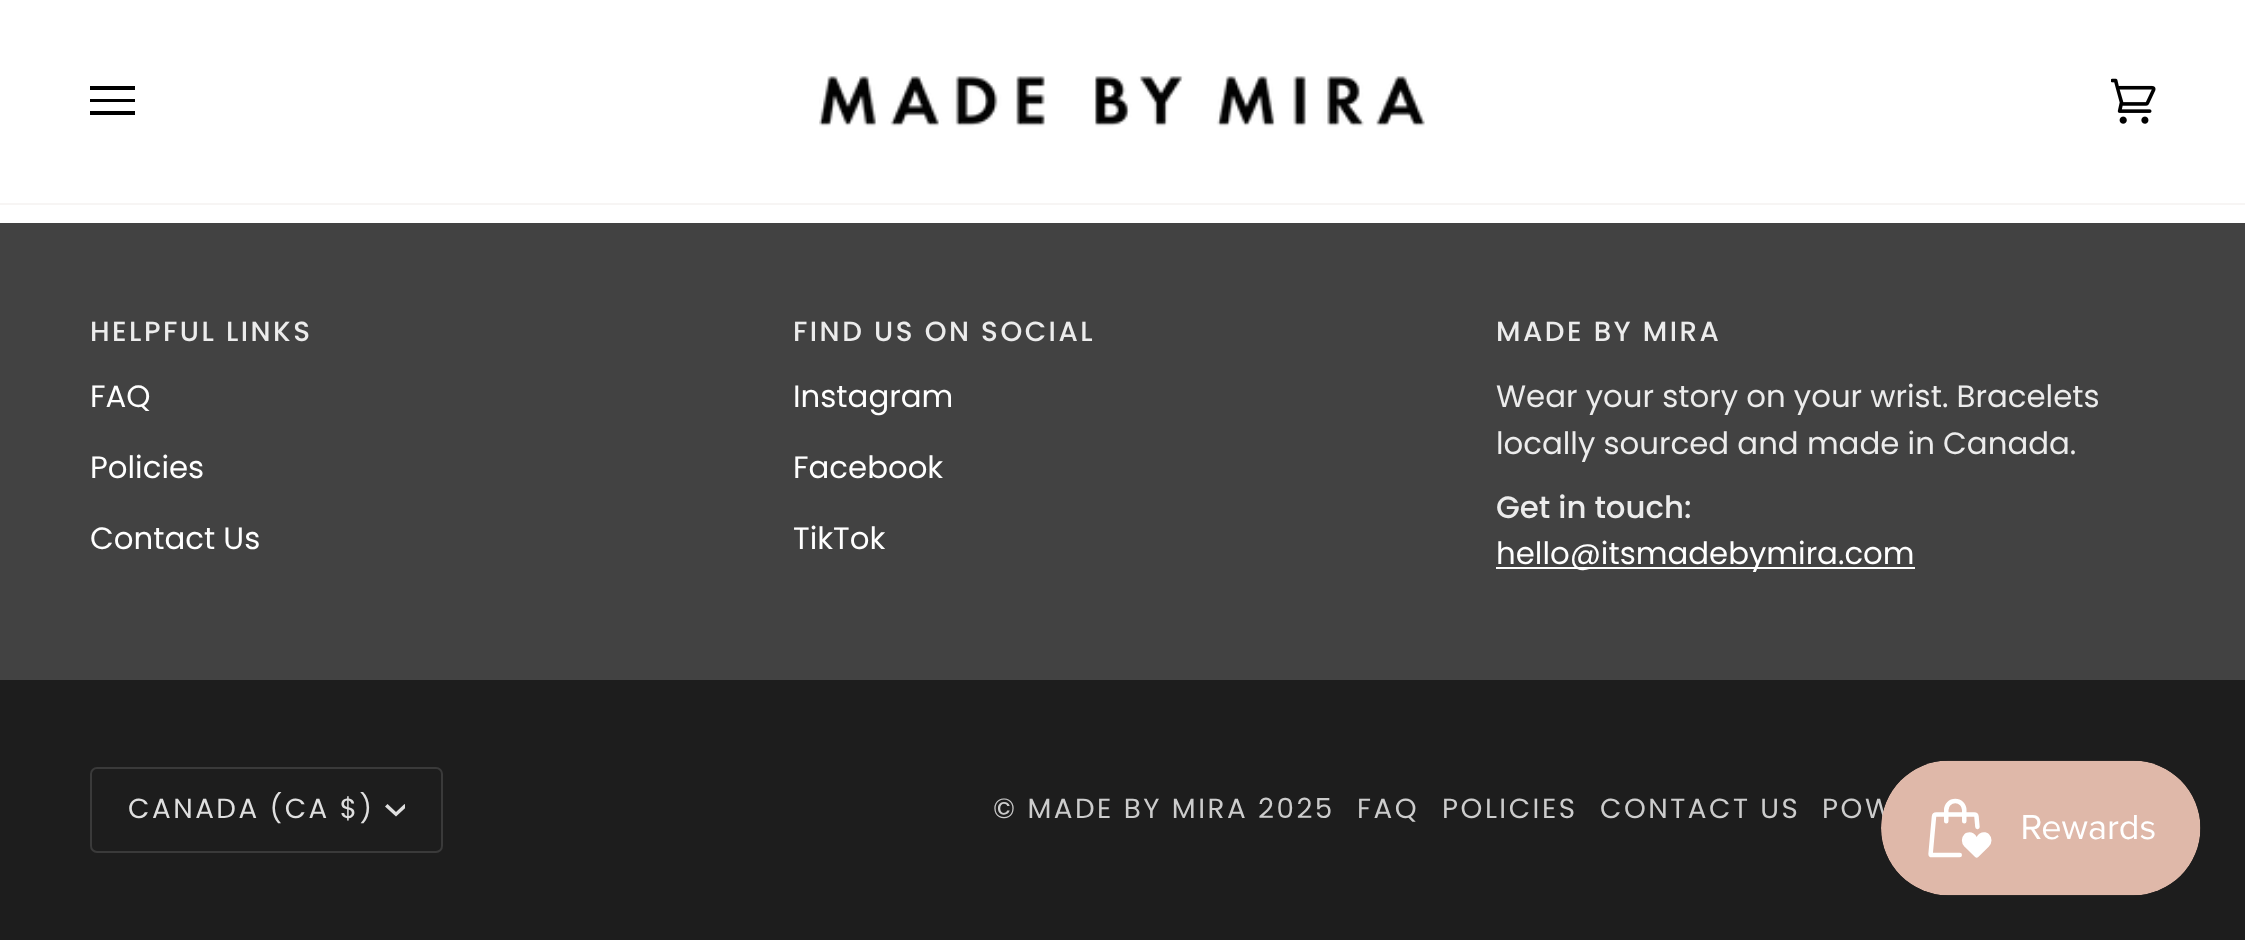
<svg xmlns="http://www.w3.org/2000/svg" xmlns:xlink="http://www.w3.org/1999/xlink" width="2245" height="940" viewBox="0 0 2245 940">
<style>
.cls-1{font:500 27.75px Poppins;letter-spacing:2.5px;fill:#ececec}
.cls-2{font:30.8px Poppins;fill:#ffffff}
.cls-3{font:30.8px Poppins;fill:#ececec}
.cls-4{font:500 30.8px Poppins;fill:#ececec}
.cls-5{font:27.75px Poppins;letter-spacing:2.5px;fill:#dfdfdf}
.cls-6{font:27.75px Poppins;letter-spacing:2.5px;fill:#cccccc}
</style>
<defs>
<clipPath id="clip1"><rect x="385" y="797" width="20" height="27"/></clipPath>
</defs>
<rect width="100%" height="100%" fill="#ffffff"/>
<rect fill="#f7f5f4" x="0" y="203" width="2245" height="2"/>
<path fill="#000000" d="M90 86H135V90H90ZM90 99H135V102H90ZM90 111H135V115H90Z"/>
<image xlink:href="image0.png" x="819" y="76" width="606" height="51"/>
<image xlink:href="image1.png" x="2111" y="78" width="45" height="46"/>
<rect fill="#424242" x="0" y="223" width="2245" height="457"/>
<rect fill="#ffffff" x="1496" y="567" width="419" height="2"/>
<rect fill="#1d1d1d" x="0" y="680" width="2245" height="260"/>
<rect fill="none" stroke="#3a3a3a" stroke-width="2" x="91" y="768" width="351" height="84" rx="6"/>
<g clip-path="url(#clip1)">
<path fill="#dfdfdf" fill-rule="evenodd" d="M385 806.5L387.5 804L396 812L404.5 804L407 806.5L396 816.5Z"/>
</g>
<text class="cls-1" x="90" y="341">HELPFUL LINKS</text>
<text class="cls-2" x="90" y="407">FAQ</text>
<text class="cls-2" x="90" y="478">Policies</text>
<text class="cls-2" x="90" y="549">Contact Us</text>
<text class="cls-1" x="793" y="341">FIND US ON SOCIAL</text>
<text class="cls-2" x="793" y="407">Instagram</text>
<text class="cls-2" x="793" y="478">Facebook</text>
<text class="cls-2" x="793" y="549">TikTok</text>
<text class="cls-1" x="1496" y="341">MADE BY MIRA</text>
<text class="cls-3"><tspan x="1496" y="407">Wear your story on your wrist. Bracelets</tspan><tspan x="1496" y="454">locally sourced and made in Canada.</tspan></text>
<text class="cls-4" x="1496" y="518">Get in touch:</text>
<text class="cls-2" x="1496" y="564">hello@itsmadebymira.com</text>
<text class="cls-5" x="128" y="818">CANADA (CA $)</text>
<text class="cls-6" x="993" y="818">© MADE BY MIRA</text>
<text class="cls-6" x="1258" y="818">2025</text>
<text class="cls-6" x="1357" y="818">FAQ</text>
<text class="cls-6" x="1442" y="818">POLICIES</text>
<text class="cls-6" x="1600" y="818">CONTACT US</text>
<text class="cls-6" x="1822" y="818">POW</text>
<image xlink:href="image2.png" x="1881" y="760" width="320" height="136"/>
</svg>
